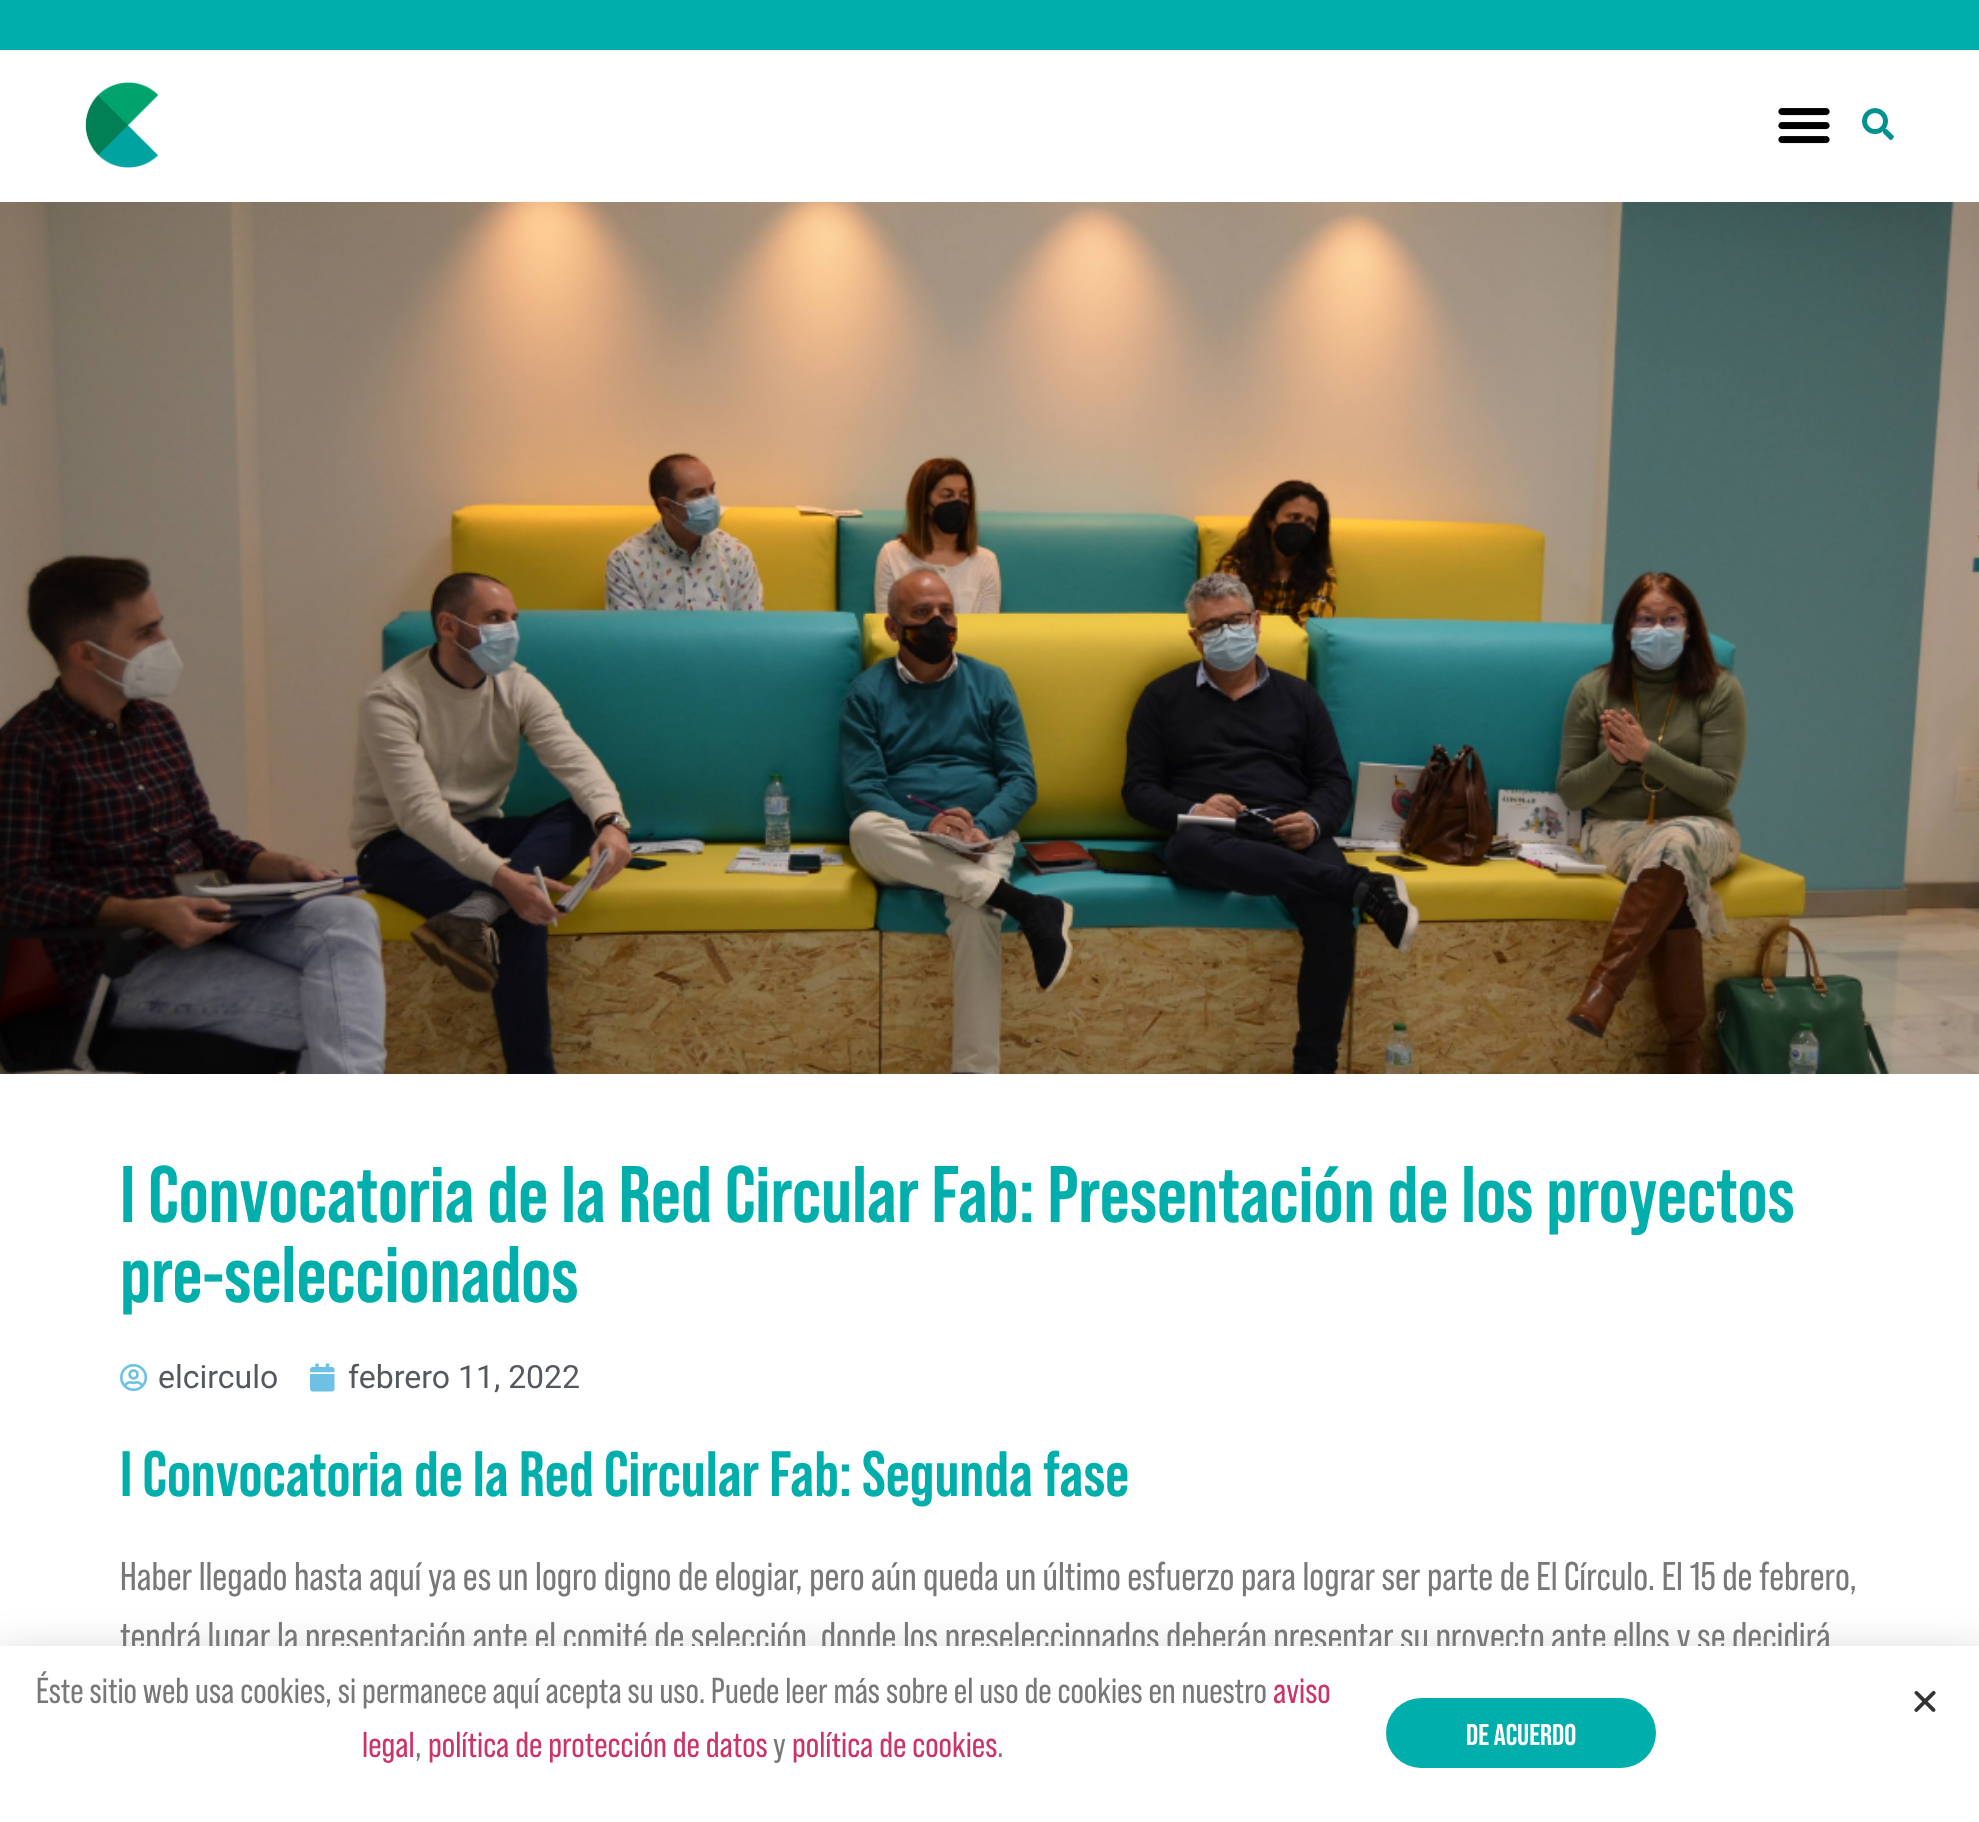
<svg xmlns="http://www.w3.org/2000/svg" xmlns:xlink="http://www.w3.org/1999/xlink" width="1979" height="1822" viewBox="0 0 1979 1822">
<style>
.cls-1{font:bold 80px Bebas Neue;fill:#00aeac}
.cls-2{font:32px Roboto;fill:#54595f}
.cls-3{font:bold 64px Bebas Neue;fill:#00aeac}
.cls-4{font:40px Bebas Neue;fill:#787878}
.cls-5{font:36px Bebas Neue;fill:#787878}
.cls-6{font:36px Bebas Neue;fill:#cc3366}
.cls-7{font:bold 30px Bebas Neue;fill:#ffffff}
</style>
<rect width="100%" height="100%" fill="#ffffff"/>
<rect fill="#00aeac" x="0" y="0" width="1979" height="50"/>
<image xlink:href="image0.png" x="85" y="82" width="74" height="86"/>
<image xlink:href="image1.png" x="1778" y="108" width="52" height="36"/>
<image xlink:href="image2.png" x="1862" y="108" width="32" height="32"/>
<image xlink:href="image3.png" x="0" y="202" width="1979" height="872"/>
<image xlink:href="image4.png" x="120" y="1363" width="28" height="29"/>
<image xlink:href="image5.png" x="310" y="1363" width="25" height="29"/>
<rect fill="#000000" fill-opacity="0.2" filter="blur(23px)" x="-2" y="1656" width="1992" height="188"/>
<text class="cls-1"><tspan x="120" y="1222">I Convocatoria de la Red Circular Fab: Presentación de los proyectos</tspan><tspan x="120" y="1302">pre-seleccionados</tspan></text>
<text class="cls-2" x="158" y="1388">elcirculo</text>
<text class="cls-2" x="348" y="1388">febrero 11, 2022</text>
<text class="cls-3" x="120" y="1496">I Convocatoria de la Red Circular Fab: Segunda fase</text>
<text class="cls-4"><tspan x="120" y="1590">Haber llegado hasta aquí ya es un logro digno de elogiar, pero aún queda un último esfuerzo para lograr ser parte de El Círculo. El 15 de febrero,</tspan><tspan x="120" y="1650">tendrá lugar la presentación ante el comité de selección, donde los preseleccionados deberán presentar su proyecto ante ellos y se decidirá</tspan></text>
<rect fill="#ffffff" x="0" y="1646" width="1979" height="176"/>
<text class="cls-5" x="36" y="1703">Éste sitio web usa cookies, si permanece aquí acepta su uso. Puede leer más sobre el uso de cookies en nuestro</text>
<text class="cls-6" x="1273" y="1703">aviso</text>
<text class="cls-6" x="362" y="1757">legal</text>
<text class="cls-5" x="415" y="1757">,</text>
<text class="cls-6" x="428" y="1757">política de protección de datos</text>
<text class="cls-5" x="773" y="1757">y</text>
<text class="cls-6" x="792" y="1757">política de cookies</text>
<text class="cls-5" x="997" y="1757">.</text>
<rect fill="#00aeac" x="1386" y="1698" width="270" height="70" rx="35"/>
<text class="cls-7" x="1466" y="1745">DE ACUERDO</text>
<image xlink:href="image6.png" x="1914" y="1690" width="22" height="22"/>
</svg>
